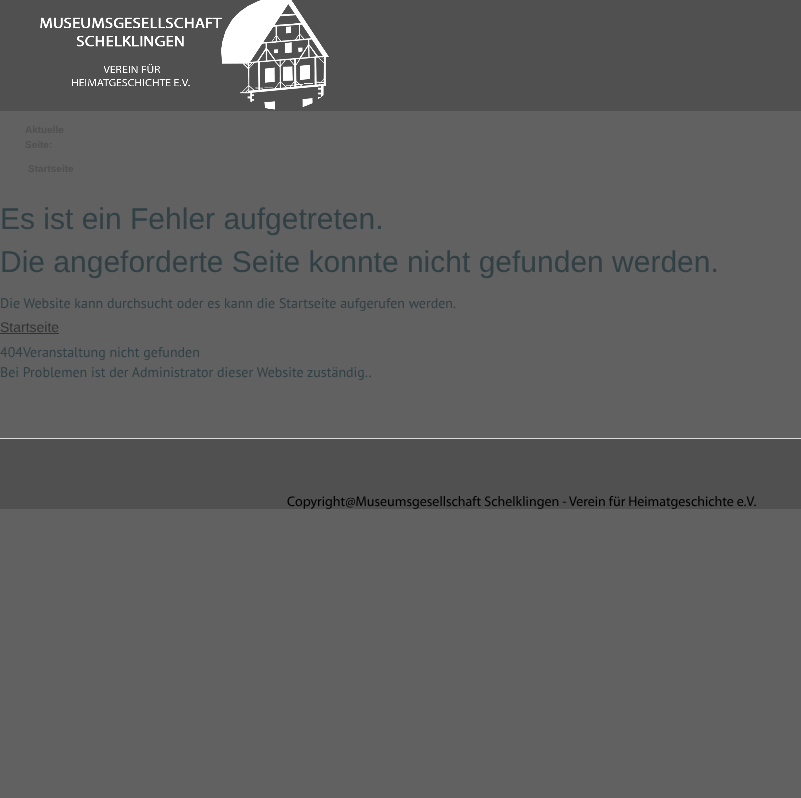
<svg xmlns="http://www.w3.org/2000/svg" xmlns:xlink="http://www.w3.org/1999/xlink" width="801" height="798" viewBox="0 0 801 798">
<style>
.cls-1{font:bold 10px Liberation Sans;fill:#505050}
.cls-2{font:30px Liberation Sans;fill:#314045}
.cls-3{font:14px PT Sans;fill:#314045}
.cls-4{font:14px Liberation Sans;fill:#333333}
.cls-5{font:14px Myriad;fill:#000000}
</style>
<rect width="100%" height="100%" fill="#616161"/>
<rect fill="#505050" x="0" y="0" width="801" height="111"/>
<image xlink:href="image0.png" x="40" y="0" width="289" height="110"/>
<rect fill="#333333" x="0" y="333" width="59" height="1"/>
<rect fill="#505050" x="0" y="439" width="801" height="70"/>
<rect fill="#dcdcdc" x="0" y="438" width="801" height="1"/>
<text class="cls-1"><tspan x="25" y="133">Aktuelle</tspan><tspan x="25" y="148">Seite:</tspan></text>
<text class="cls-1" x="28" y="172">Startseite</text>
<text class="cls-2"><tspan x="0" y="229">Es ist ein Fehler aufgetreten.</tspan><tspan x="0" y="272">Die angeforderte Seite konnte nicht gefunden werden.</tspan></text>
<text class="cls-3" x="0" y="308">Die Website kann durchsucht oder es kann die Startseite aufgerufen werden.</text>
<text class="cls-4" x="0" y="332">Startseite</text>
<text class="cls-3"><tspan x="0" y="357">404Veranstaltung nicht gefunden</tspan><tspan x="0" y="377">Bei Problemen ist der Administrator dieser Website zuständig..</tspan></text>
<text class="cls-5" x="287" y="506">Copyright@Museumsgesellschaft Schelklingen - Verein für Heimatgeschichte e.V.</text>
</svg>
